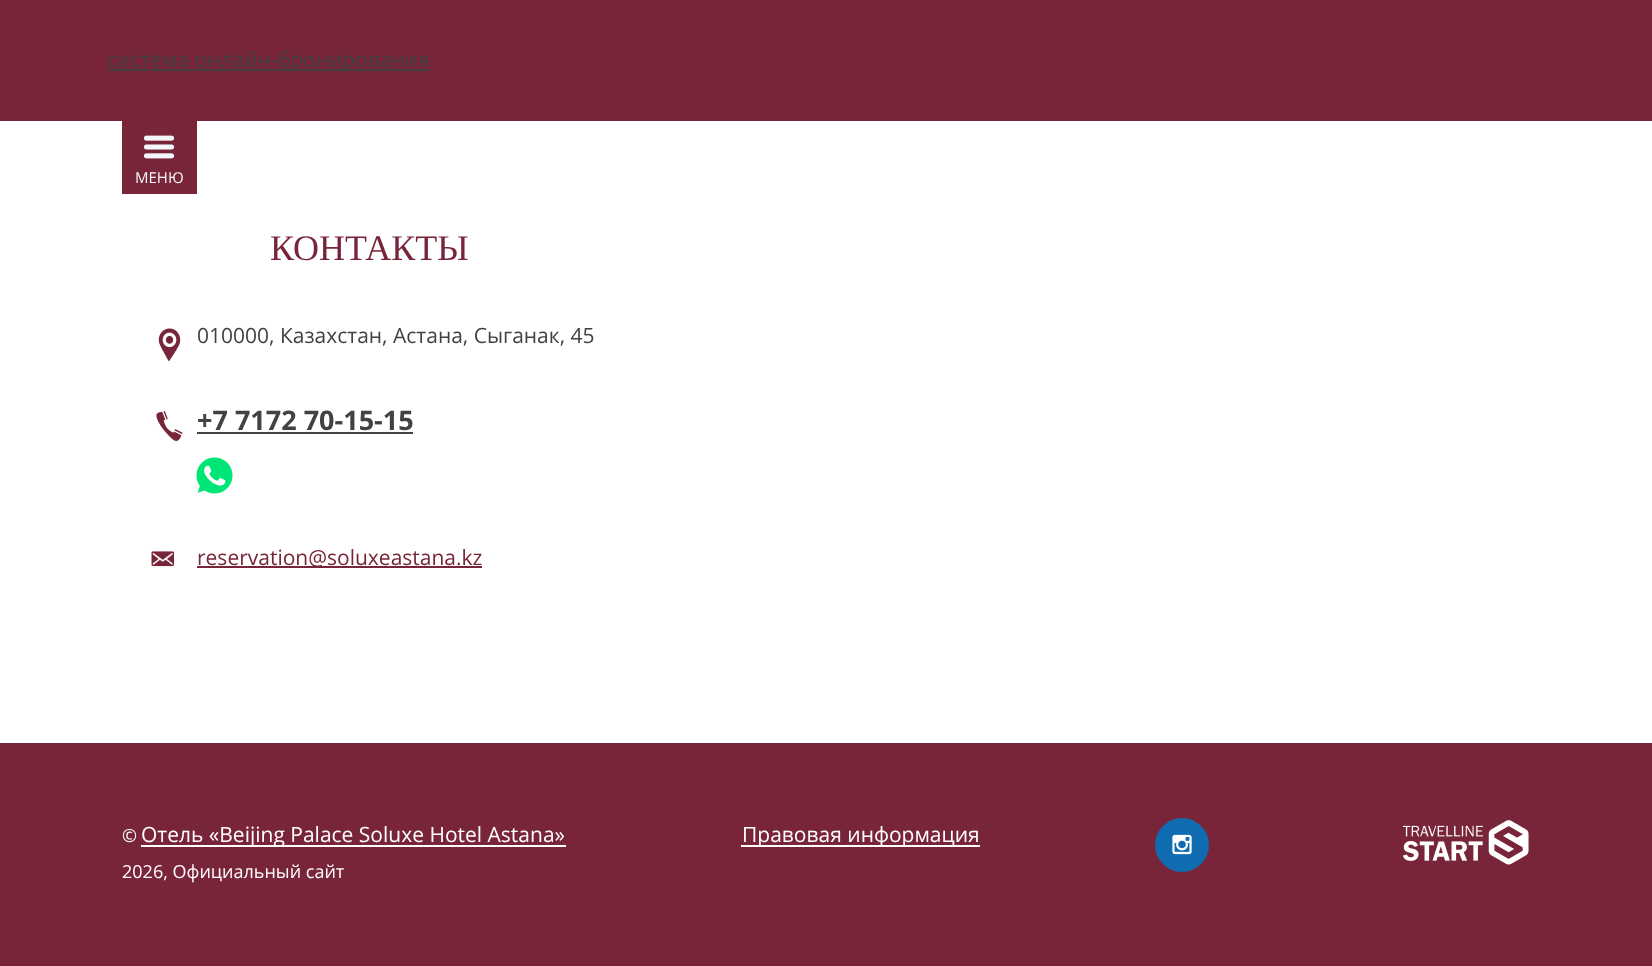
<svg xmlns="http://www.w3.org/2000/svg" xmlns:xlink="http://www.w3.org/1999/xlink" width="1652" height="966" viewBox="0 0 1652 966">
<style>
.cls-1{font:21px Open Sans;fill:#424242}
.cls-2{font:15px Open Sans;fill:#f4f7f9}
.cls-3{font:36px Liberation Serif;fill:#792539}
.cls-4{font:bold 27px Open Sans;fill:#424242}
.cls-5{font:21px Open Sans;fill:#792539}
.cls-6{font:18px Open Sans;fill:#ffffff}
.cls-7{font:21px Open Sans;fill:#ffffff}
</style>
<rect width="100%" height="100%" fill="#ffffff"/>
<rect fill="#792539" x="0" y="0" width="1652" height="121"/>
<rect fill="#424242" x="107" y="69" width="322" height="2"/>
<rect fill="#792539" x="122" y="121" width="75" height="73"/>
<image xlink:href="image0.png" x="143" y="135" width="32" height="24"/>
<image xlink:href="image1.png" x="158" y="328" width="23" height="34"/>
<image xlink:href="image2.png" x="156" y="411" width="27" height="30"/>
<rect fill="#424242" x="197" y="432" width="216" height="2"/>
<image xlink:href="image3.png" x="196" y="457" width="37" height="37"/>
<image xlink:href="image4.png" x="151" y="551" width="23" height="16"/>
<rect fill="#792539" x="197" y="566" width="285" height="2"/>
<rect fill="#792539" x="0" y="743" width="1652" height="223"/>
<rect fill="#ffffff" x="141" y="845" width="425" height="2"/>
<rect fill="#ffffff" x="741" y="845" width="239" height="2"/>
<circle fill="#106cb0" cx="1182" cy="845" r="27"/>
<image xlink:href="image5.png" x="1172" y="834" width="20" height="21"/>
<image xlink:href="image6.png" x="1402" y="820" width="127" height="45"/>
<text class="cls-1" x="107" y="67">система онлайн-бронирования</text>
<text class="cls-2" x="135" y="183">МЕНЮ</text>
<text class="cls-3" x="270" y="260">КОНТАКТЫ</text>
<text class="cls-1" x="197" y="343">010000, Казахстан, Астана, Сыганак, 45</text>
<text class="cls-4" x="197" y="430">+7 7172 70-15-15</text>
<text class="cls-5" x="197" y="565">reservation@soluxeastana.kz</text>
<text class="cls-6" x="122" y="842">©</text>
<text class="cls-7" x="141" y="842">Отель «Beijing Palace Soluxe Hotel Astana»</text>
<text class="cls-6" x="122" y="878">2026, Официальный сайт</text>
<text class="cls-7" x="742" y="842">Правовая информация</text>
</svg>
